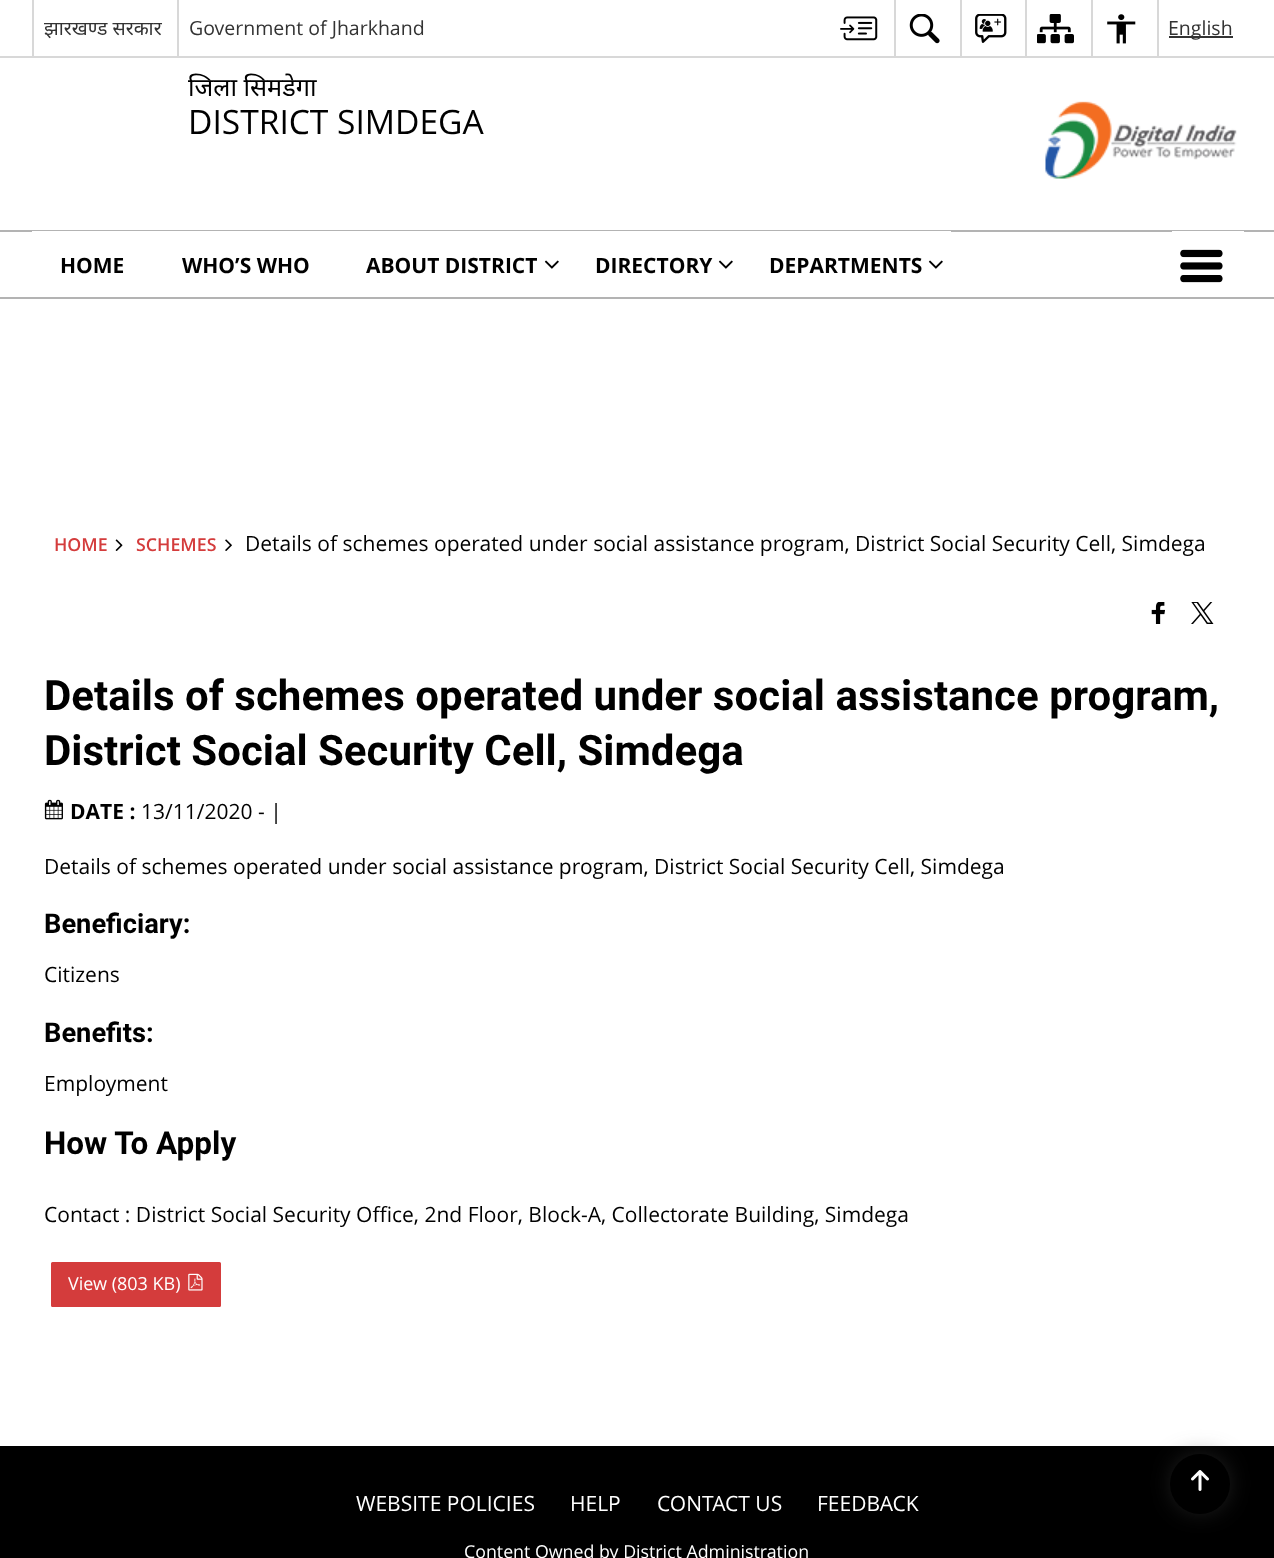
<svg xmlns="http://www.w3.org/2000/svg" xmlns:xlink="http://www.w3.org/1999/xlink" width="1274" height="1558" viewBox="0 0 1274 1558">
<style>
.cls-1{font:19.5px Noto Sans;fill:#333333}
.cls-2{font:19.5px Open Sans;fill:#333333}
.cls-3{font:25.25px Noto Sans;fill:#000000}
.cls-4{font:33.5px Open Sans;fill:#000000}
.cls-5{font:bold 21px Open Sans;fill:#000000}
.cls-6{font:600 17.8px Open Sans;fill:#d43c3c}
.cls-7{font:21px Open Sans;fill:#000000}
.cls-8{font:bold 42px Roboto;fill:#000000}
.cls-9{font:bold 27.25px Roboto;fill:#000000}
.cls-10{font:bold 31.5px Roboto;fill:#000000}
.cls-11{font:18px Open Sans;fill:#ffffff}
.cls-12{font:21px Open Sans;fill:#ffffff}
.cls-13{font:17.8px Open Sans;fill:#ffffff}
</style>
<rect width="100%" height="100%" fill="#ffffff"/>
<rect fill="#d8d8d8" x="0" y="56" width="1274" height="2"/>
<rect fill="#d8d8d8" x="32" y="0" width="2" height="56"/>
<rect fill="#d8d8d8" x="177" y="0" width="2" height="56"/>
<image xlink:href="image0.png" x="840" y="16" width="38" height="25"/>
<rect fill="#d8d8d8" x="894" y="0" width="2" height="56"/>
<image xlink:href="image1.png" x="909" y="14" width="31" height="30"/>
<rect fill="#d8d8d8" x="960" y="0" width="2" height="56"/>
<image xlink:href="image2.png" x="975" y="14" width="32" height="29"/>
<rect fill="#d8d8d8" x="1025" y="0" width="2" height="56"/>
<image xlink:href="image3.png" x="1037" y="14" width="37" height="30"/>
<rect fill="#d8d8d8" x="1091" y="0" width="2" height="56"/>
<image xlink:href="image4.png" x="1107" y="14" width="29" height="30"/>
<rect fill="#d8d8d8" x="1157" y="0" width="2" height="56"/>
<rect fill="#333333" x="1169" y="36" width="64" height="2"/>
<image xlink:href="image5.png" x="1045" y="101" width="192" height="78"/>
<rect fill="#b3b3b3" x="0" y="230" width="1274" height="2"/>
<rect fill="#b3b3b3" x="0" y="297" width="1274" height="2"/>
<rect fill="#ffffff" x="32" y="231" width="919" height="1"/>
<image xlink:href="image6.png" x="544" y="260" width="15" height="9"/>
<image xlink:href="image6.png" x="718" y="260" width="15" height="9"/>
<image xlink:href="image6.png" x="928" y="260" width="15" height="9"/>
<rect fill="#ffffff" x="1172" y="231" width="72" height="1"/>
<image xlink:href="image7.png" x="1180" y="249" width="43" height="34"/>
<image xlink:href="image8.png" x="115" y="539" width="8" height="12"/>
<image xlink:href="image9.png" x="225" y="539" width="7" height="12"/>
<image xlink:href="image10.png" x="1151" y="602" width="14" height="22"/>
<image xlink:href="image11.png" x="1191" y="602" width="23" height="22"/>
<image xlink:href="image12.png" x="44" y="799" width="19" height="21"/>
<rect fill="#d43c3c" stroke="#d43c3c" stroke-width="2" x="52" y="1263" width="168" height="43" rx="0.5"/>
<image xlink:href="image13.png" x="188" y="1273" width="15" height="18"/>
<rect fill="#000000" x="0" y="1446" width="1274" height="112"/>
<rect fill="#3c3c3c" filter="blur(14px)" x="1178" y="1461" width="45" height="45" rx="22.5"/>
<circle fill="#000000" cx="1200" cy="1484" r="30"/>
<image xlink:href="image14.png" x="1191" y="1470" width="18" height="21"/>
<text class="cls-1" x="44" y="35">झारखण्ड सरकार</text>
<text class="cls-2" x="189" y="35">Government of Jharkhand</text>
<text class="cls-2" x="1168" y="35">English</text>
<text class="cls-3" x="188" y="96">जिला सिमडेगा</text>
<text class="cls-4" x="188" y="134">DISTRICT SIMDEGA</text>
<text class="cls-5" x="60" y="273">HOME</text>
<text class="cls-5" x="182" y="273">WHO’S WHO</text>
<text class="cls-5" x="366" y="273">ABOUT DISTRICT</text>
<text class="cls-5" x="595" y="273">DIRECTORY</text>
<text class="cls-5" x="769" y="273">DEPARTMENTS</text>
<text class="cls-6" x="54" y="551">HOME</text>
<text class="cls-6" x="136" y="551">SCHEMES</text>
<text class="cls-7" x="245" y="551">Details of schemes operated under social assistance program, District Social Security Cell, Simdega</text>
<text class="cls-8"><tspan x="44" y="710">Details of schemes operated under social assistance program,</tspan><tspan x="44" y="765">District Social Security Cell, Simdega</tspan></text>
<text class="cls-5" x="70" y="819">DATE :</text>
<text class="cls-7" x="141" y="819">13/11/2020 - |</text>
<text class="cls-7" x="44" y="874">Details of schemes operated under social assistance program, District Social Security Cell, Simdega</text>
<text class="cls-9" x="44" y="933">Beneficiary:</text>
<text class="cls-7" x="44" y="982">Citizens</text>
<text class="cls-9" x="44" y="1042">Benefits:</text>
<text class="cls-7" x="44" y="1091">Employment</text>
<text class="cls-10" x="44" y="1154">How To Apply</text>
<text class="cls-7" x="44" y="1222">Contact : District Social Security Office, 2nd Floor, Block-A, Collectorate Building, Simdega</text>
<text class="cls-11" x="68" y="1290">View (803 KB)</text>
<text class="cls-12" x="356" y="1511">WEBSITE POLICIES</text>
<text class="cls-12" x="570" y="1511">HELP</text>
<text class="cls-12" x="657" y="1511">CONTACT US</text>
<text class="cls-12" x="817" y="1511">FEEDBACK</text>
<text class="cls-13" x="464" y="1558">Content Owned by District Administration</text>
</svg>
